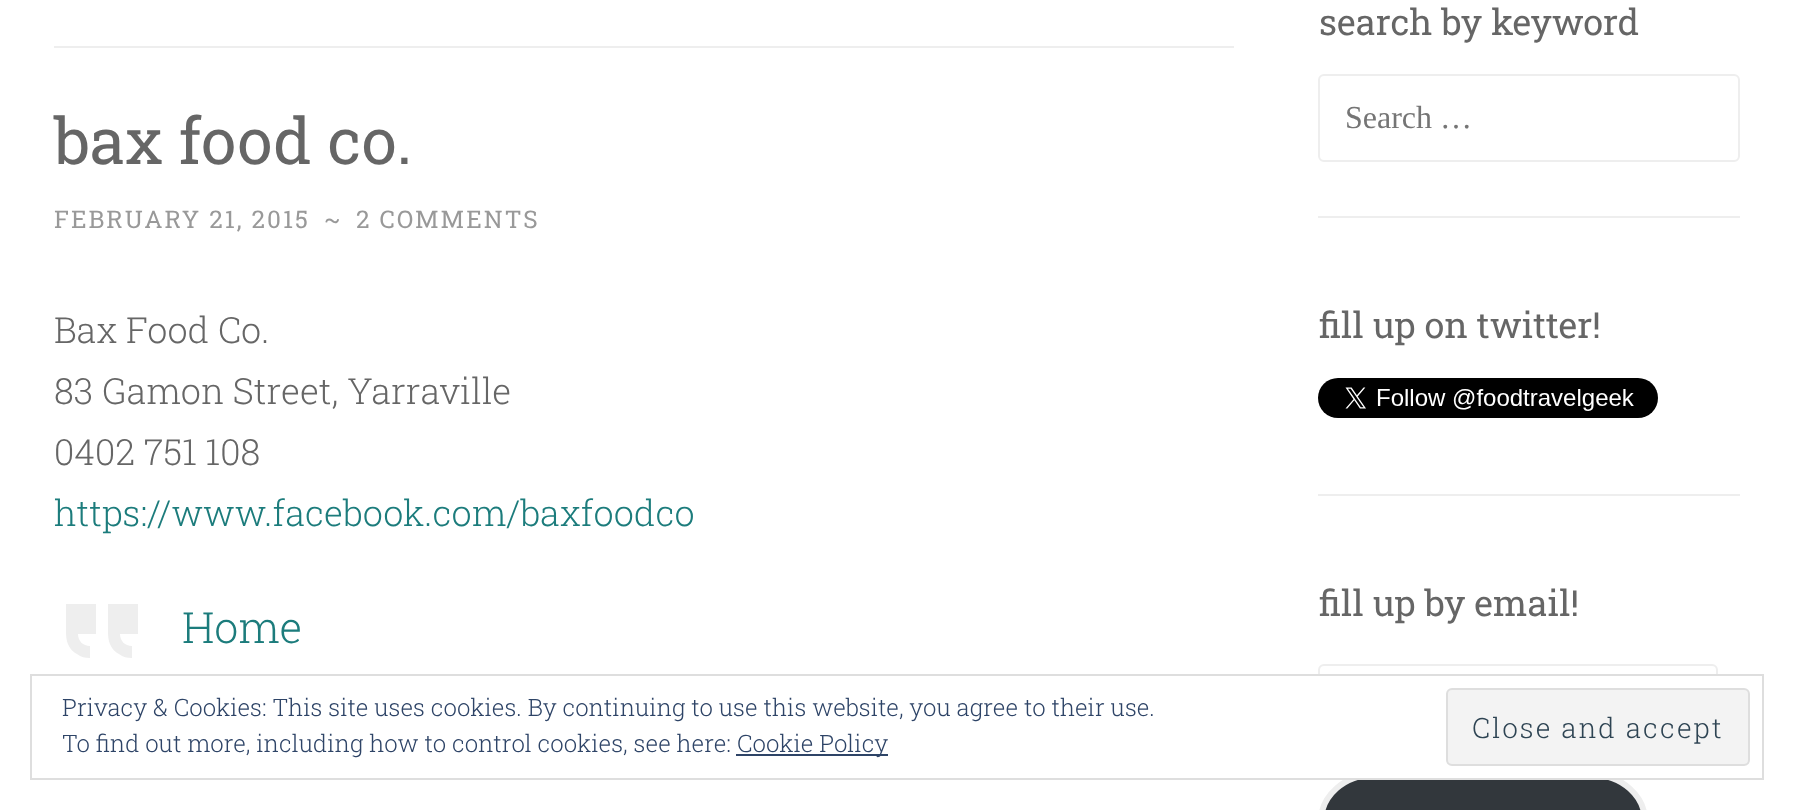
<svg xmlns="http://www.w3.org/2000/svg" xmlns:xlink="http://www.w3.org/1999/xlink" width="1793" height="810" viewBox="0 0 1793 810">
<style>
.cls-1{font:64px Roboto Slab;fill:#666666}
.cls-2{font:24.4px Roboto Slab;letter-spacing:2px;fill:#999999}
.cls-3{font:300 36px Roboto Slab;fill:#666666}
.cls-4{font:300 36px Roboto Slab;fill:#1c7c7c}
.cls-5{font:300 43px Roboto Slab;fill:#1c7c7c}
.cls-6{font:36px Roboto Slab;fill:#666666}
.cls-7{font:32px Liberation Serif;fill:#757575}
.cls-8{font:300 24px Roboto Slab;fill:#2e4467}
.cls-9{font:300 28px Roboto Slab;letter-spacing:2px;fill:#2e4453}
</style>
<rect width="100%" height="100%" fill="#ffffff"/>
<rect fill="#eeeeee" x="54" y="46" width="1180" height="2"/>
<path fill="#eeeeee" d="M138 634V604H108V624C108 636 107 647 119 654C123 657 127 658 132 658V646C125 646 120 641 120 634ZM96 604H66V624C66 636 65 647 77 654C81 657 85 658 90 658V646C83 646 78 641 78 634H96Z"/>
<rect fill="#eeeeee" x="1318" y="216" width="422" height="2"/>
<rect fill="none" stroke="#eeeeee" stroke-width="2" x="1319" y="75" width="420" height="86" rx="5"/>
<rect fill="#eeeeee" x="1318" y="494" width="422" height="2"/>
<image xlink:href="image0.png" x="1318" y="378" width="340" height="40"/>
<rect fill="none" stroke="#eeeeee" stroke-width="2" x="1319" y="665" width="398" height="42" rx="5"/>
<rect fill="#32373c" stroke="#eeeeee" stroke-width="6" x="1321" y="775" width="324" height="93" rx="52"/>
<rect fill="#ffffff" x="1318" y="676" width="400" height="102"/>
<rect fill="none" stroke="#dedede" stroke-width="2" x="31" y="675" width="1732" height="104"/>
<rect fill="#2e4467" x="736" y="754" width="152" height="2"/>
<rect fill="#f3f3f3" stroke="#dedede" stroke-width="2" x="1447" y="689" width="302" height="76" rx="5"/>
<text class="cls-1" x="54" y="164">bax food co.</text>
<text class="cls-2" x="54" y="228">FEBRUARY 21, 2015</text>
<text class="cls-2" x="324" y="228">~</text>
<text class="cls-2" x="356" y="228">2 COMMENTS</text>
<text class="cls-3"><tspan x="54" y="343">Bax Food Co.</tspan><tspan x="54" y="404">83 Gamon Street, Yarraville</tspan><tspan x="54" y="465">0402 751 108</tspan></text>
<text class="cls-4" x="54" y="526">https://www.facebook.com/baxfoodco</text>
<text class="cls-5" x="182" y="643">Home</text>
<text class="cls-6" x="1319" y="35">search by keyword</text>
<text class="cls-7" x="1345" y="128">Search …</text>
<text class="cls-6" x="1319" y="338">fill up on twitter!</text>
<text class="cls-6" x="1319" y="616">fill up by email!</text>
<text class="cls-8"><tspan x="62" y="716">Privacy &amp; Cookies: This site uses cookies. By continuing to use this website, you agree to their use.</tspan><tspan x="62" y="752">To find out more, including how to control cookies, see here:</tspan></text>
<text class="cls-8" x="737" y="752">Cookie Policy</text>
<text class="cls-9" x="1472" y="738">Close and accept</text>
</svg>
